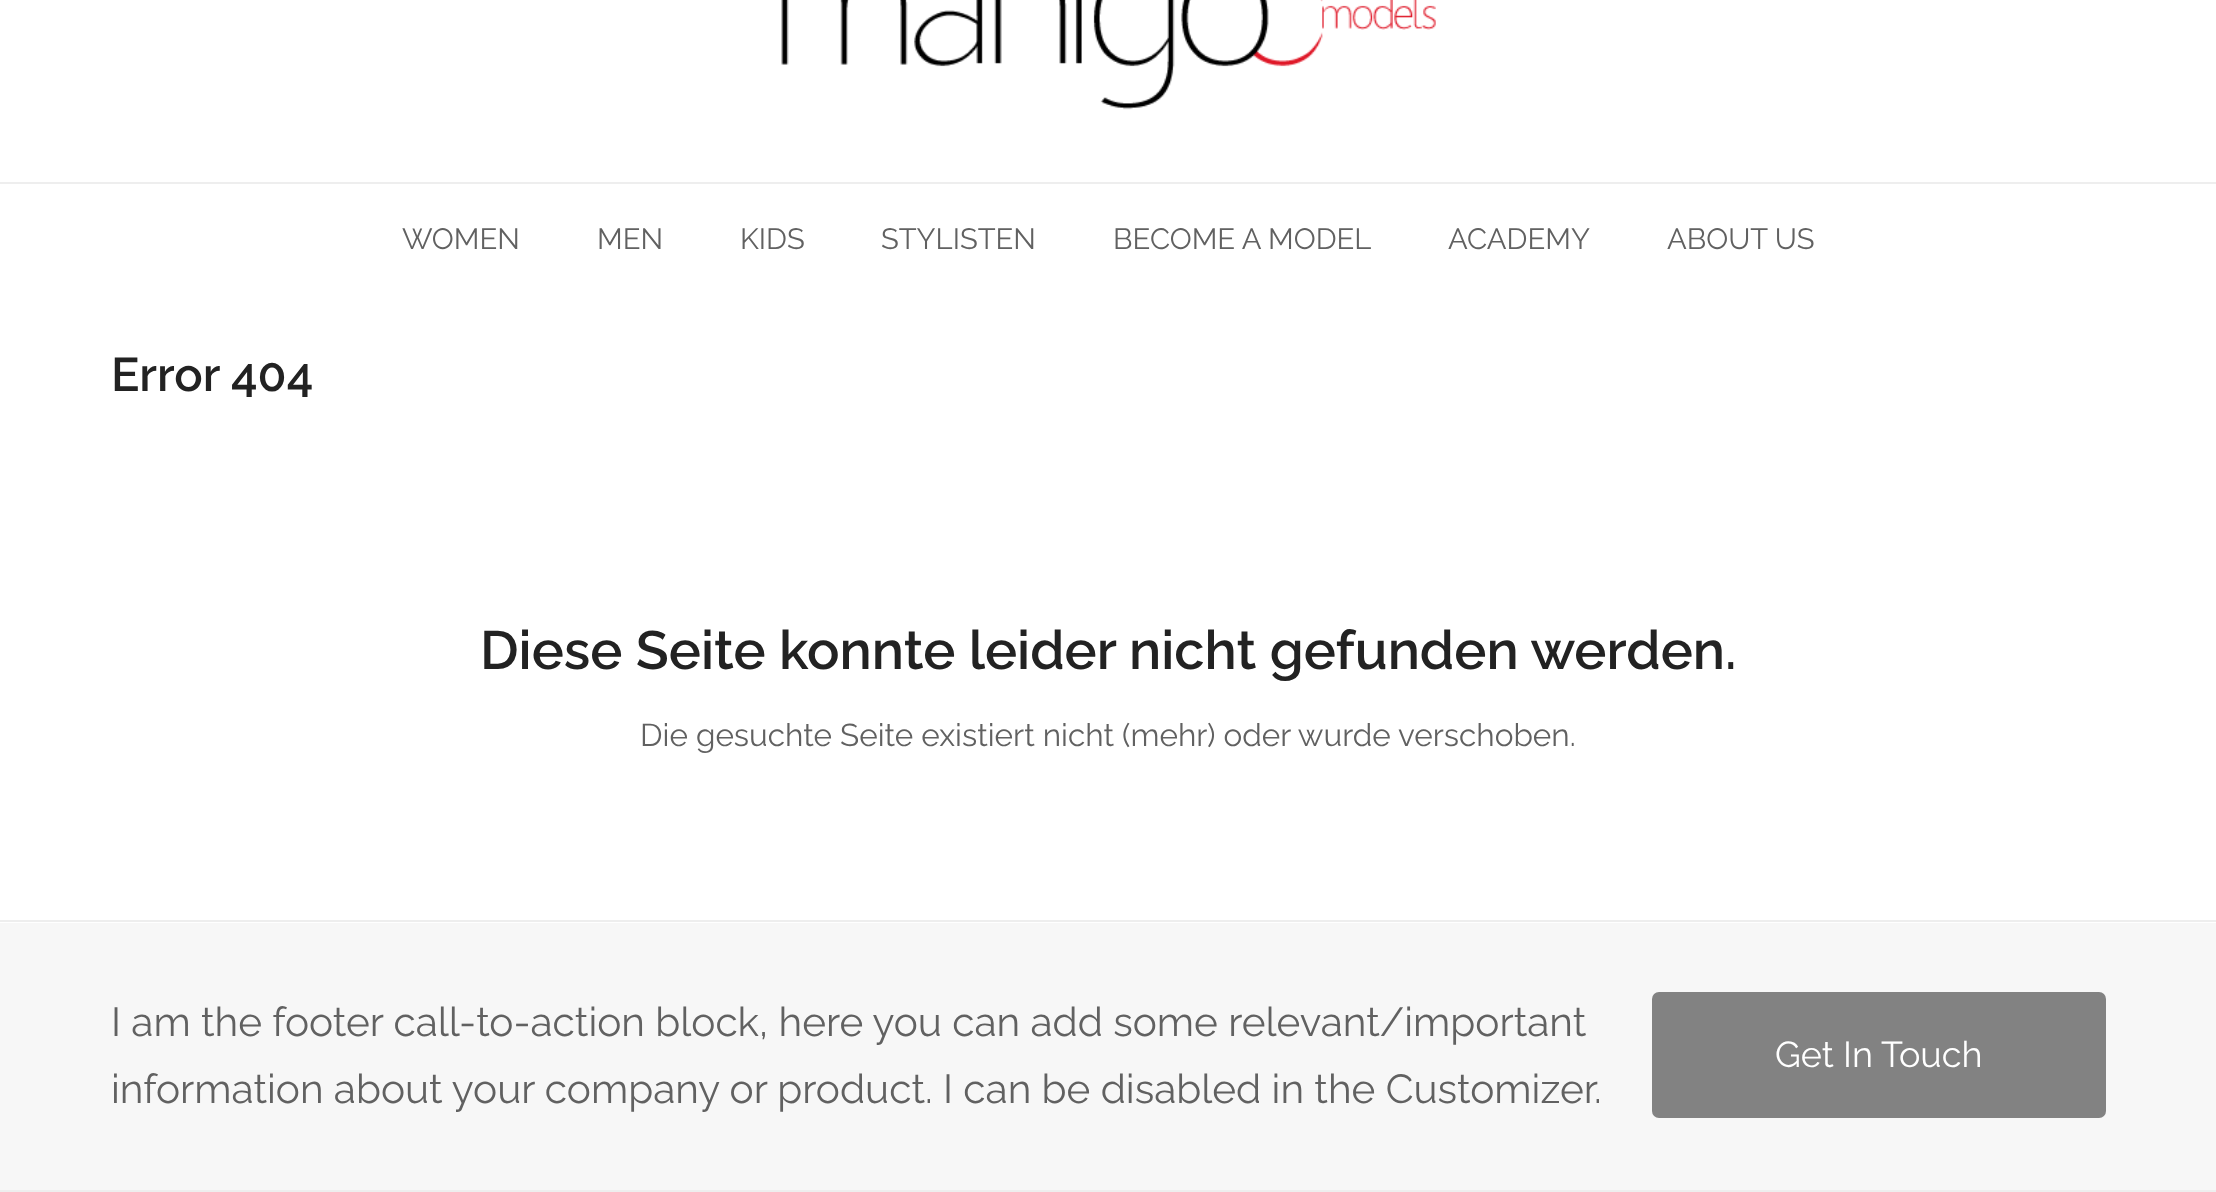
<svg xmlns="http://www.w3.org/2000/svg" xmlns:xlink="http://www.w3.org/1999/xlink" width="2216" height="1192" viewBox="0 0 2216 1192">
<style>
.cls-1{font:29.25px Raleway;fill:#616161}
.cls-2{font:600 47.25px Raleway;fill:#222222}
.cls-3{font:600 54px Raleway;fill:#222222}
.cls-4{font:31.5px Raleway;fill:#616161}
.cls-5{font:40.5px Raleway;fill:#616161}
.cls-6{font:36px Raleway;fill:#ffffff}
</style>
<rect width="100%" height="100%" fill="#ffffff"/>
<image xlink:href="image0.png" x="781" y="0" width="655" height="110"/>
<rect fill="#eeeeee" x="0" y="182" width="2216" height="2"/>
<rect fill="#f7f7f7" x="0" y="923" width="2216" height="267"/>
<rect fill="#eeeeee" x="0" y="920" width="2216" height="2"/>
<rect fill="#eeeeee" x="0" y="1190" width="2216" height="2"/>
<rect fill="#828282" x="1652" y="992" width="454" height="126" rx="7"/>
<text class="cls-1" x="402" y="249">WOMEN</text>
<text class="cls-1" x="597" y="249">MEN</text>
<text class="cls-1" x="740" y="249">KIDS</text>
<text class="cls-1" x="881" y="249">STYLISTEN</text>
<text class="cls-1" x="1113" y="249">BECOME A MODEL</text>
<text class="cls-1" x="1448" y="249">ACADEMY</text>
<text class="cls-1" x="1667" y="249">ABOUT US</text>
<text class="cls-2" x="111" y="391">Error 404</text>
<text class="cls-3" x="480" y="669">Diese Seite konnte leider nicht gefunden werden.</text>
<text class="cls-4" x="640" y="746">Die gesuchte Seite existiert nicht (mehr) oder wurde verschoben.</text>
<text class="cls-5"><tspan x="111" y="1036">I am the footer call-to-action block, here you can add some relevant/important</tspan><tspan x="111" y="1103">information about your company or product. I can be disabled in the Customizer.</tspan></text>
<text class="cls-6" x="1775" y="1067">Get In Touch</text>
</svg>
